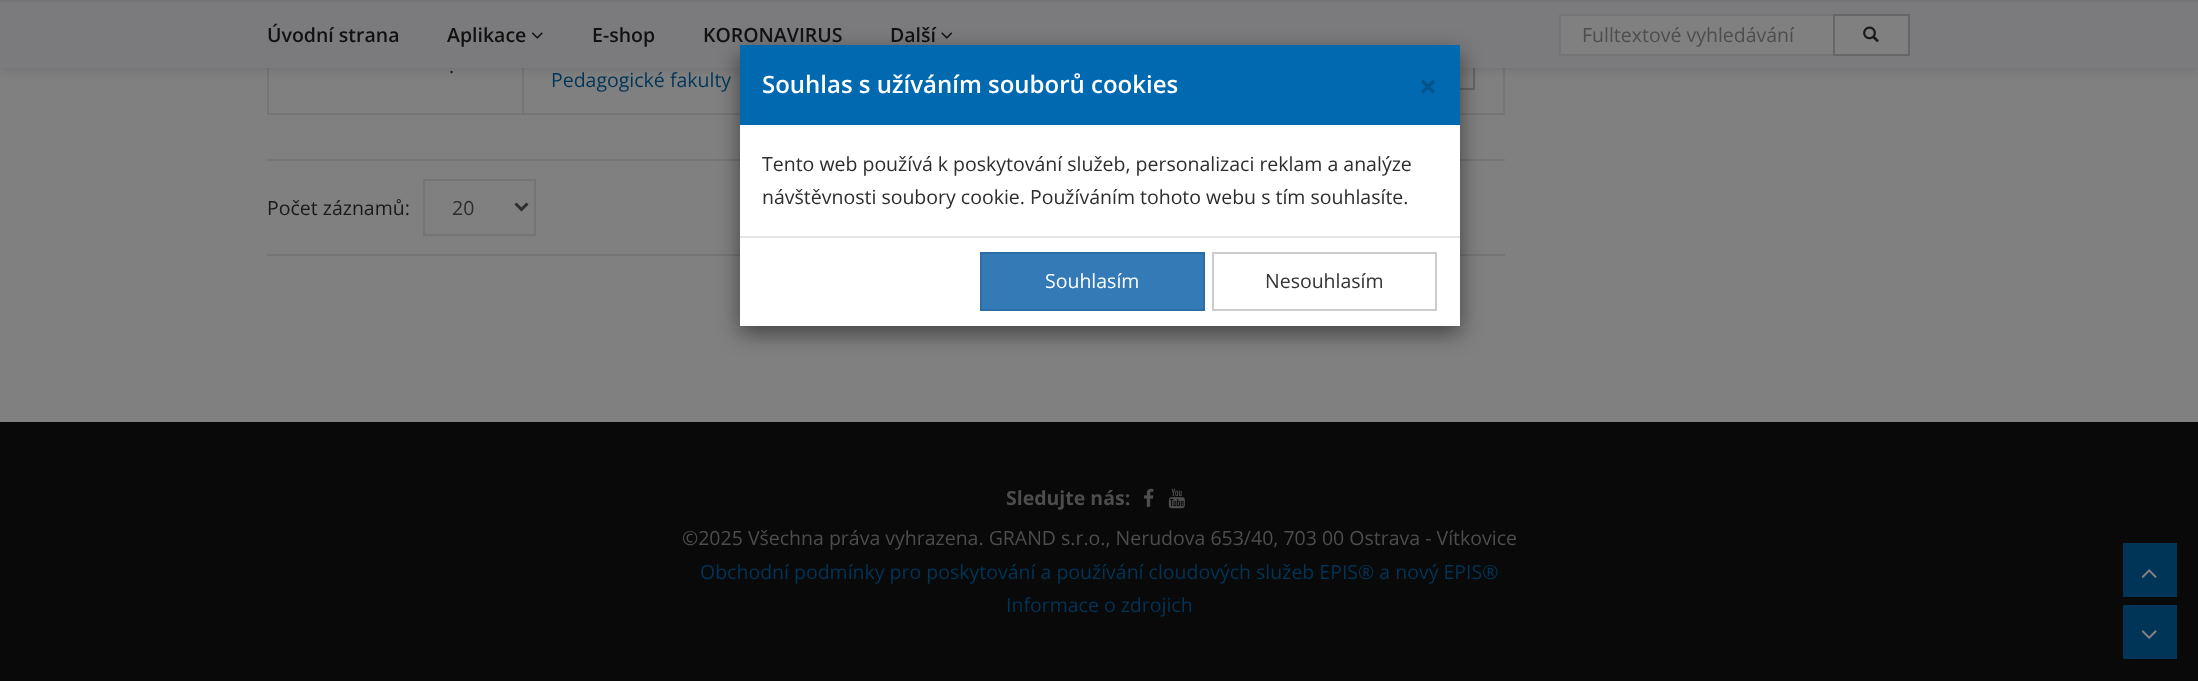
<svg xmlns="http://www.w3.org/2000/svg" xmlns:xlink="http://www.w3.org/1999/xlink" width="2198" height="681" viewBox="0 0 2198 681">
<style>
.cls-1{font:600 19.5px Open Sans;fill:#111111}
.cls-2{font:19.5px Open Sans;fill:#4d4d4d}
.cls-3{font:19.5px Open Sans;fill:#191919}
.cls-4{font:19.5px Open Sans;fill:#003558}
.cls-5{font:19.5px Open Sans;fill:#2d2d2d}
.cls-6{font:bold 19.5px Open Sans;fill:#4d4d4d}
.cls-7{font:600 24px Open Sans;fill:#ffffff}
.cls-8{font:bold 32px Open Sans;fill:#00548d}
.cls-9{font:19.5px Open Sans;fill:#ffffff}
.cls-10{font:19.5px Open Sans;fill:#333333}
</style>
<rect width="100%" height="100%" fill="#808080"/>
<rect fill="#757575" x="267" y="113" width="1238" height="2"/>
<rect fill="#757575" x="267" y="68" width="2" height="46"/>
<rect fill="#757575" x="522" y="68" width="2" height="46"/>
<rect fill="#757575" x="1503" y="68" width="2" height="46"/>
<rect fill="none" stroke="#666666" stroke-width="2" x="1432" y="43" width="42" height="46"/>
<rect fill="#000000" fill-opacity="0.1" filter="blur(4.5px)" x="0" y="3" width="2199" height="68"/>
<rect fill="#737373" x="0" y="0" width="2198" height="2"/>
<rect fill="#7b7b7d" x="0" y="2" width="2198" height="66"/>
<image xlink:href="image0.png" x="531" y="32" width="12" height="7"/>
<image xlink:href="image1.png" x="941" y="32" width="12" height="7"/>
<rect fill="#808080" stroke="#757575" stroke-width="2" x="1560" y="15" width="274" height="40"/>
<rect fill="#808080" stroke="#666666" stroke-width="2" x="1834" y="15" width="75" height="40"/>
<image xlink:href="image2.png" x="1863" y="26" width="16" height="16"/>
<rect fill="#757575" x="267" y="159" width="1238" height="2"/>
<rect fill="#757575" x="267" y="254" width="1238" height="2"/>
<rect fill="none" stroke="#757575" stroke-width="2" x="424" y="180" width="111" height="55"/>
<path fill="none" stroke="#2d2d2d" stroke-width="3" d="M515.5 203.5L521.5 209.5L527.5 203.5"/>
<rect fill="#090909" x="0" y="422" width="2198" height="259"/>
<image xlink:href="image3.png" x="1144" y="488" width="10" height="19"/>
<image xlink:href="image4.png" x="1168" y="488" width="17" height="21"/>
<rect fill="#000000" fill-opacity="0.5" filter="blur(11px)" x="740" y="53" width="720" height="280"/>
<rect fill="#ffffff" x="740" y="125" width="720" height="201"/>
<rect fill="#0069b0" x="740" y="45" width="720" height="80"/>
<rect fill="#e5e5e5" x="740" y="236" width="720" height="2"/>
<rect fill="#337ab7" stroke="#2e6da4" stroke-width="2" x="981" y="253" width="223" height="57"/>
<rect fill="none" stroke="#cccccc" stroke-width="2" x="1213" y="253" width="223" height="57"/>
<rect fill="#003558" x="2123" y="543" width="54" height="54"/>
<image xlink:href="image5.png" x="2141" y="569" width="16" height="9"/>
<rect fill="#003558" x="2123" y="605" width="54" height="54"/>
<image xlink:href="image6.png" x="2141" y="630" width="16" height="9"/>
<text class="cls-1" x="267" y="42">Úvodní strana</text>
<text class="cls-1" x="447" y="42">Aplikace</text>
<text class="cls-1" x="592" y="42">E-shop</text>
<text class="cls-1" x="703" y="42">KORONAVIRUS</text>
<text class="cls-1" x="890" y="42">Další</text>
<text class="cls-2" x="1582" y="42">Fulltextové vyhledávání</text>
<text class="cls-3" x="449" y="73">.</text>
<text class="cls-4" x="551" y="87">Pedagogické fakulty</text>
<text class="cls-3" x="267" y="215">Počet záznamů:</text>
<text class="cls-5" x="452" y="215">20</text>
<text class="cls-6" x="1006" y="505">Sledujte nás:</text>
<text class="cls-2" x="682" y="545">©2025 Všechna práva vyhrazena. GRAND s.r.o., Nerudova 653/40, 703 00 Ostrava - Vítkovice</text>
<text class="cls-4" x="700" y="579">Obchodní podmínky pro poskytování a používání cloudových služeb EPIS® a nový EPIS®</text>
<text class="cls-4" x="1006" y="612">Informace o zdrojich</text>
<text class="cls-7" x="762" y="93">Souhlas s užíváním souborů cookies</text>
<text class="cls-8" x="1419" y="98">×</text>
<text class="cls-5"><tspan x="762" y="171">Tento web používá k poskytování služeb, personalizaci reklam a analýze</tspan><tspan x="762" y="204">návštěvnosti soubory cookie. Používáním tohoto webu s tím souhlasíte.</tspan></text>
<text class="cls-9" x="1045" y="288">Souhlasím</text>
<text class="cls-10" x="1265" y="288">Nesouhlasím</text>
</svg>
